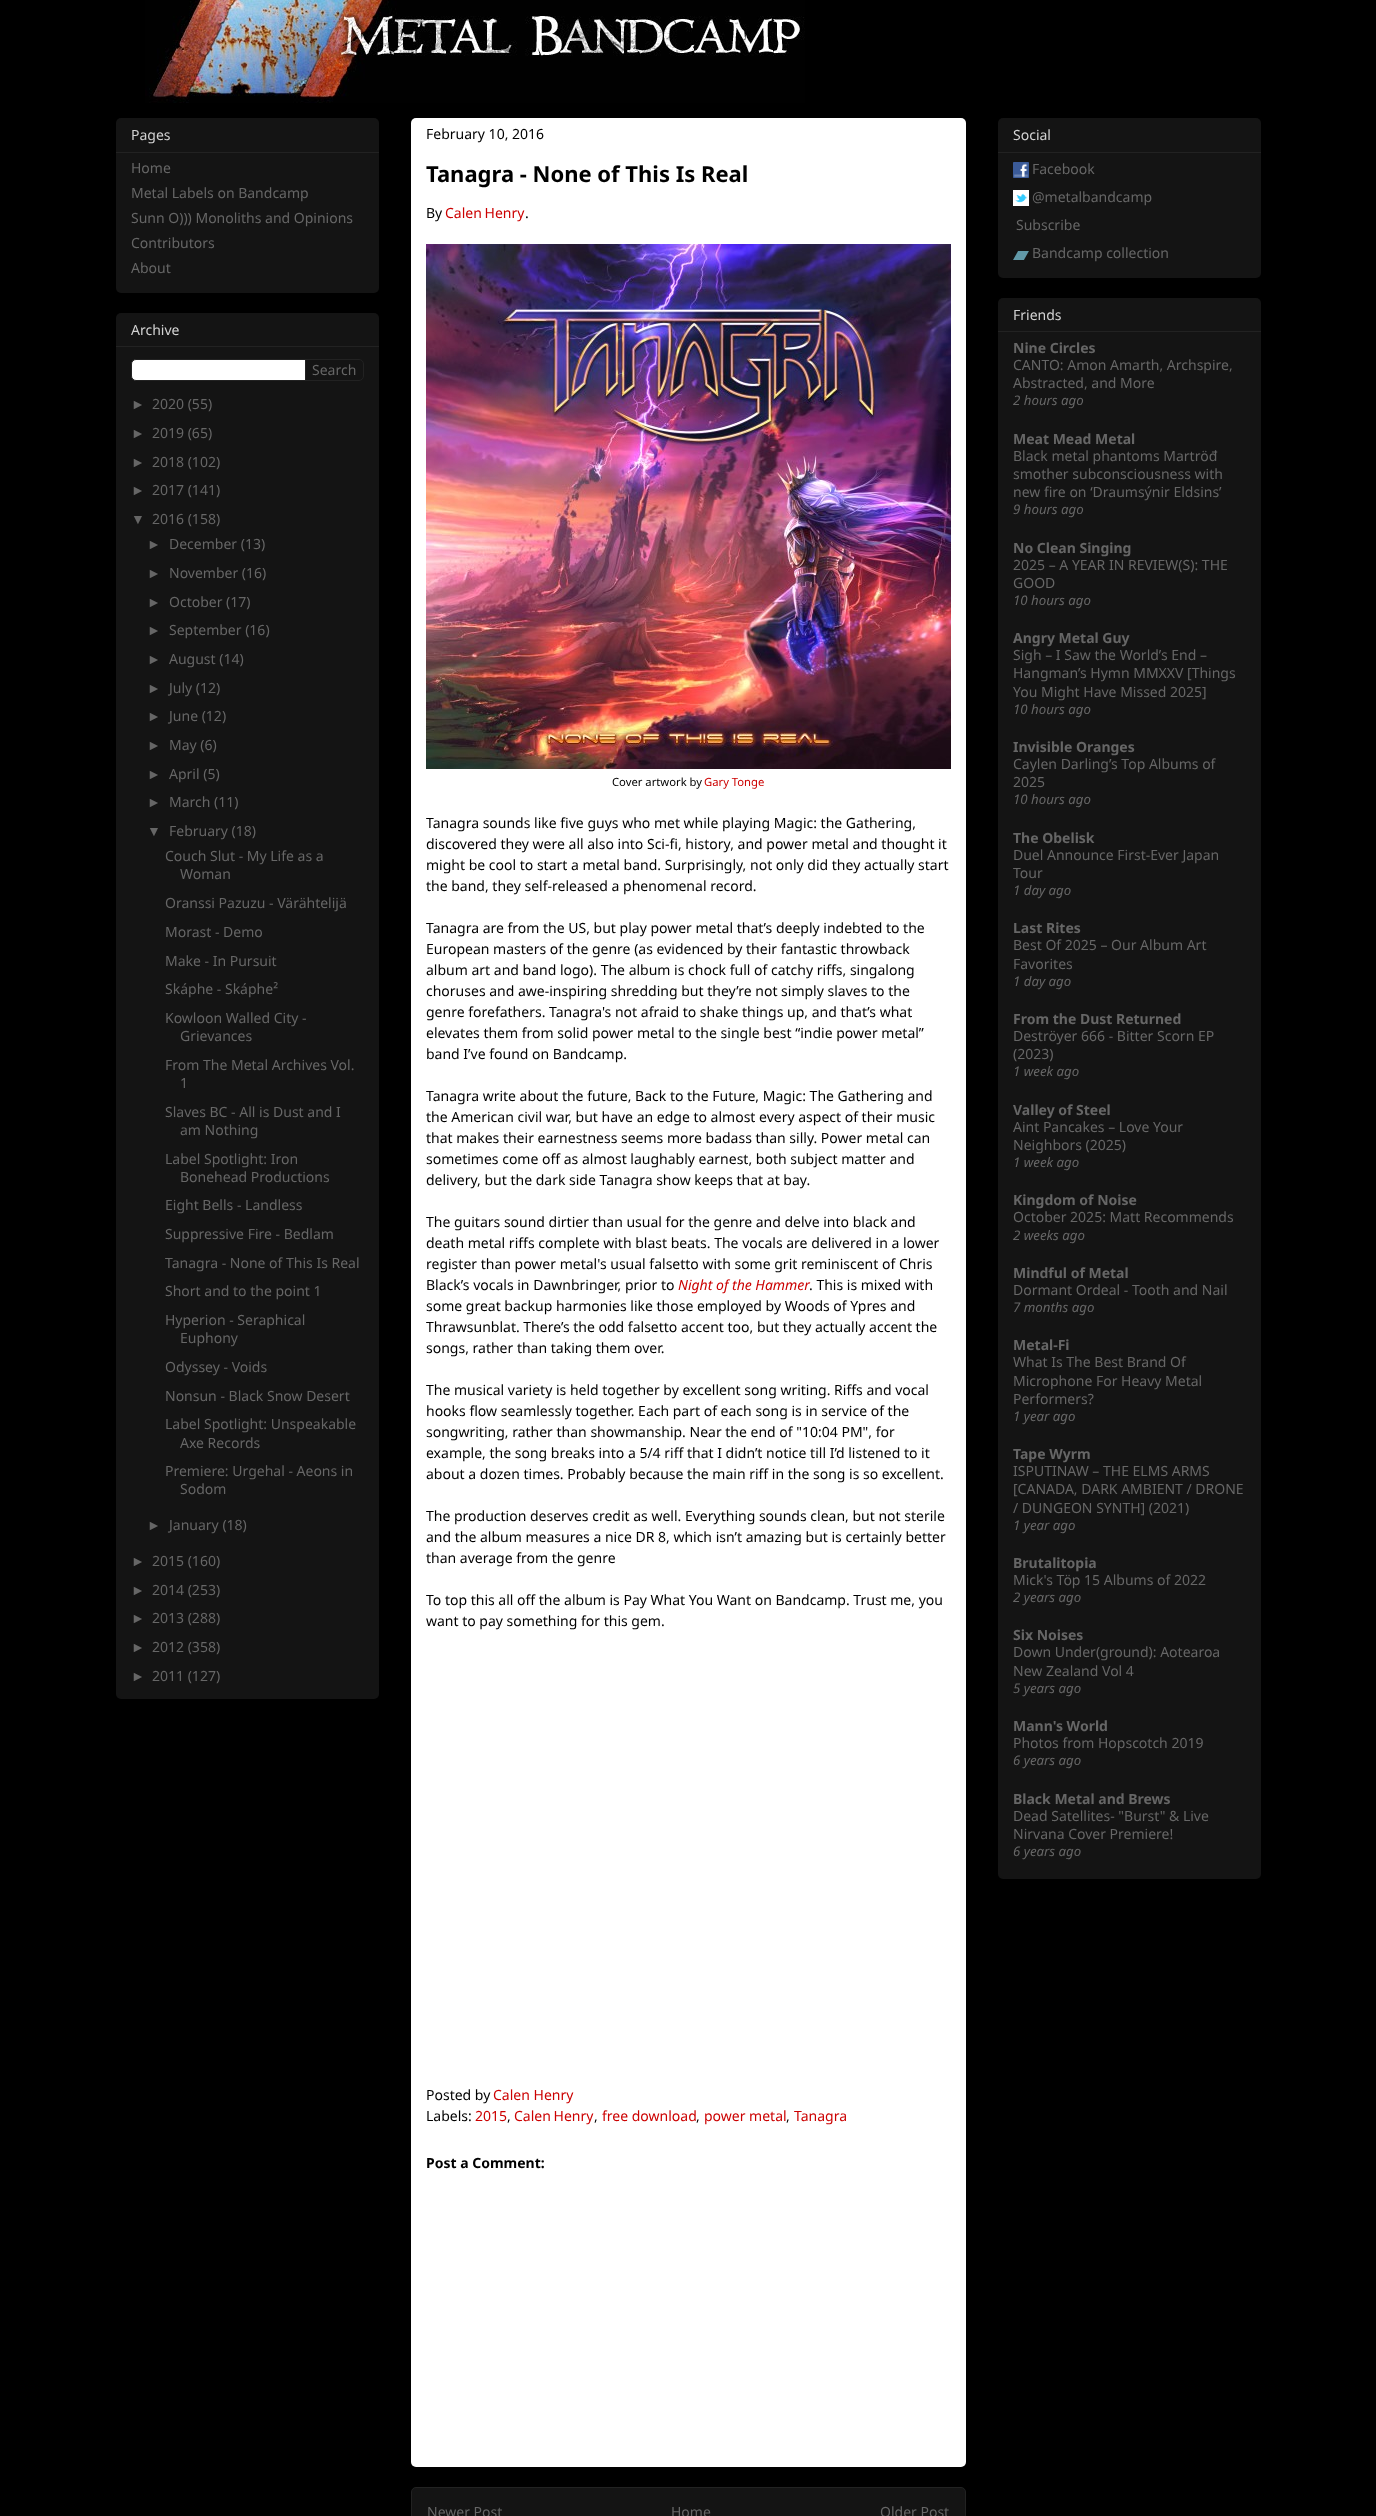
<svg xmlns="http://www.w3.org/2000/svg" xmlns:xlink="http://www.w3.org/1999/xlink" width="1376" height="2516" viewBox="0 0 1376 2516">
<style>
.cls-1{font:14px Noto Sans;fill:#d2d2d2}
.cls-2{font:14px Noto Sans;fill:#666666}
.cls-3{font:14px Liberation Sans;fill:#666666}
.cls-4{font:14px Noto Sans;fill:#000000}
.cls-5{font:bold 22px Noto Sans;fill:#000000}
.cls-6{font:14px Noto Sans;fill:#cc0000}
.cls-7{font:11.25px Noto Sans;fill:#000000}
.cls-8{font:11.25px Noto Sans;fill:#cc0000}
.cls-9{font:italic 14px Noto Sans;fill:#cc0000}
.cls-10{font:bold 14px Noto Sans;fill:#000000}
.cls-11{font:bold 14px Noto Sans;fill:#666666}
.cls-12{font:italic 13.25px Noto Sans;fill:#666666}
</style>
<rect width="100%" height="100%" fill="#000000"/>
<image xlink:href="image0.png" x="145" y="0" width="660" height="103"/>
<rect fill="#141414" x="116" y="118" width="263" height="175" rx="5"/>
<rect fill="#222222" x="116" y="152" width="263" height="1"/>
<rect fill="#141414" x="116" y="313" width="263" height="1386" rx="5"/>
<rect fill="#222222" x="116" y="346" width="263" height="1"/>
<path fill="#ffffff" stroke="#222222" d="M136 359.5H305.5V380.5H136C133.5 380.5 131.5 378.5 131.5 376V364C131.5 361.5 133.5 359.5 136 359.5Z"/>
<path fill="#141414" stroke="#222222" d="M305.5 359.5H359C361.5 359.5 363.5 361.5 363.5 364V376C363.5 378.5 361.5 380.5 359 380.5H305.5Z"/>
<rect fill="#ffffff" x="411" y="118" width="555" height="2349" rx="5"/>
<image xlink:href="image1.png" x="426" y="244" width="525" height="525"/>
<rect fill="#141414" stroke="#222222" x="411.5" y="2487.5" width="554" height="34" rx="4.5"/>
<rect fill="#141414" x="998" y="118" width="263" height="160" rx="5"/>
<rect fill="#222222" x="998" y="152" width="263" height="1"/>
<image xlink:href="image2.png" x="1013" y="162" width="16" height="16"/>
<image xlink:href="image3.png" x="1013" y="190" width="16" height="16"/>
<image xlink:href="image4.png" x="1013" y="251" width="16" height="9"/>
<rect fill="#141414" x="998" y="298" width="263" height="1581" rx="5"/>
<rect fill="#222222" x="998" y="331" width="263" height="1"/>
<text class="cls-1" x="131" y="140">Pages</text>
<text class="cls-2"><tspan x="131" y="173">Home</tspan><tspan x="131" y="198">Metal Labels on Bandcamp</tspan><tspan x="131" y="223">Sunn O))) Monoliths and Opinions</tspan><tspan x="131" y="248">Contributors</tspan><tspan x="131" y="273">About</tspan></text>
<text class="cls-1" x="131" y="335">Archive</text>
<text class="cls-2" x="312" y="375">Search</text>
<text class="cls-3" x="131" y="409">►</text>
<text class="cls-2" x="152" y="409">2020 (55)</text>
<text class="cls-3" x="131" y="438">►</text>
<text class="cls-2" x="152" y="438">2019 (65)</text>
<text class="cls-3" x="131" y="467">►</text>
<text class="cls-2" x="152" y="467">2018 (102)</text>
<text class="cls-3" x="131" y="495">►</text>
<text class="cls-2" x="152" y="495">2017 (141)</text>
<text class="cls-3" x="131" y="524">▼</text>
<text class="cls-2" x="152" y="524">2016 (158)</text>
<text class="cls-3" x="147" y="549">►</text>
<text class="cls-2" x="169" y="549">December (13)</text>
<text class="cls-3" x="147" y="578">►</text>
<text class="cls-2" x="169" y="578">November (16)</text>
<text class="cls-3" x="147" y="607">►</text>
<text class="cls-2" x="169" y="607">October (17)</text>
<text class="cls-3" x="147" y="635">►</text>
<text class="cls-2" x="169" y="635">September (16)</text>
<text class="cls-3" x="147" y="664">►</text>
<text class="cls-2" x="169" y="664">August (14)</text>
<text class="cls-3" x="147" y="693">►</text>
<text class="cls-2" x="169" y="693">July (12)</text>
<text class="cls-3" x="147" y="721">►</text>
<text class="cls-2" x="169" y="721">June (12)</text>
<text class="cls-3" x="147" y="750">►</text>
<text class="cls-2" x="169" y="750">May (6)</text>
<text class="cls-3" x="147" y="779">►</text>
<text class="cls-2" x="169" y="779">April (5)</text>
<text class="cls-3" x="147" y="807">►</text>
<text class="cls-2" x="169" y="807">March (11)</text>
<text class="cls-3" x="147" y="836">▼</text>
<text class="cls-2" x="169" y="836">February (18)</text>
<text class="cls-2" x="165" y="861">Couch Slut - My Life as a</text>
<text class="cls-2" x="180" y="879">Woman</text>
<text class="cls-2" x="165" y="908">Oranssi Pazuzu - Värähtelijä</text>
<text class="cls-2" x="165" y="937">Morast - Demo</text>
<text class="cls-2" x="165" y="966">Make - In Pursuit</text>
<text class="cls-2" x="165" y="994">Skáphe - Skáphe²</text>
<text class="cls-2" x="165" y="1023">Kowloon Walled City -</text>
<text class="cls-2" x="180" y="1041">Grievances</text>
<text class="cls-2" x="165" y="1070">From The Metal Archives Vol.</text>
<text class="cls-2" x="180" y="1088">1</text>
<text class="cls-2" x="165" y="1117">Slaves BC - All is Dust and I</text>
<text class="cls-2" x="180" y="1135">am Nothing</text>
<text class="cls-2" x="165" y="1164">Label Spotlight: Iron</text>
<text class="cls-2" x="180" y="1182">Bonehead Productions</text>
<text class="cls-2" x="165" y="1210">Eight Bells - Landless</text>
<text class="cls-2" x="165" y="1239">Suppressive Fire - Bedlam</text>
<text class="cls-2" x="165" y="1268">Tanagra - None of This Is Real</text>
<text class="cls-2" x="165" y="1296">Short and to the point 1</text>
<text class="cls-2" x="165" y="1325">Hyperion - Seraphical</text>
<text class="cls-2" x="180" y="1343">Euphony</text>
<text class="cls-2" x="165" y="1372">Odyssey - Voids</text>
<text class="cls-2" x="165" y="1401">Nonsun - Black Snow Desert</text>
<text class="cls-2" x="165" y="1429">Label Spotlight: Unspeakable</text>
<text class="cls-2" x="180" y="1448">Axe Records</text>
<text class="cls-2" x="165" y="1476">Premiere: Urgehal - Aeons in</text>
<text class="cls-2" x="180" y="1494">Sodom</text>
<text class="cls-3" x="147" y="1530">►</text>
<text class="cls-2" x="169" y="1530">January (18)</text>
<text class="cls-3" x="131" y="1566">►</text>
<text class="cls-2" x="152" y="1566">2015 (160)</text>
<text class="cls-3" x="131" y="1595">►</text>
<text class="cls-2" x="152" y="1595">2014 (253)</text>
<text class="cls-3" x="131" y="1623">►</text>
<text class="cls-2" x="152" y="1623">2013 (288)</text>
<text class="cls-3" x="131" y="1652">►</text>
<text class="cls-2" x="152" y="1652">2012 (358)</text>
<text class="cls-3" x="131" y="1681">►</text>
<text class="cls-2" x="152" y="1681">2011 (127)</text>
<text class="cls-4" x="426" y="139">February 10, 2016</text>
<text class="cls-5" x="426" y="182">Tanagra - None of This Is Real</text>
<text class="cls-4" x="426" y="218">By</text>
<text class="cls-6" x="445" y="218" word-spacing="-1">Calen Henry</text>
<text class="cls-4" x="525" y="218">.</text>
<text class="cls-7" x="612" y="786">Cover artwork by</text>
<text class="cls-8" x="704" y="786">Gary Tonge</text>
<text class="cls-4"><tspan x="426" y="828">Tanagra sounds like five guys who met while playing Magic: the Gathering,</tspan><tspan x="426" y="849">discovered they were all also into Sci-fi, history, and power metal and thought it</tspan><tspan x="426" y="870">might be cool to start a metal band. Surprisingly, not only did they actually start</tspan><tspan x="426" y="891">the band, they self-released a phenomenal record.</tspan></text>
<text class="cls-4"><tspan x="426" y="933">Tanagra are from the US, but play power metal that’s deeply indebted to the</tspan><tspan x="426" y="954">European masters of the genre (as evidenced by their fantastic throwback</tspan><tspan x="426" y="975">album art and band logo). The album is chock full of catchy riffs, singalong</tspan><tspan x="426" y="996">choruses and awe-inspiring shredding but they’re not simply slaves to the</tspan><tspan x="426" y="1017">genre forefathers. Tanagra's not afraid to shake things up, and that’s what</tspan><tspan x="426" y="1038">elevates them from solid power metal to the single best “indie power metal”</tspan><tspan x="426" y="1059">band I’ve found on Bandcamp.</tspan></text>
<text class="cls-4"><tspan x="426" y="1101">Tanagra write about the future, Back to the Future, Magic: The Gathering and</tspan><tspan x="426" y="1122">the American civil war, but have an edge to almost every aspect of their music</tspan><tspan x="426" y="1143">that makes their earnestness seems more badass than silly. Power metal can</tspan><tspan x="426" y="1164">sometimes come off as almost laughably earnest, both subject matter and</tspan><tspan x="426" y="1185">delivery, but the dark side Tanagra show keeps that at bay.</tspan></text>
<text class="cls-4"><tspan x="426" y="1227">The guitars sound dirtier than usual for the genre and delve into black and</tspan><tspan x="426" y="1248">death metal riffs complete with blast beats. The vocals are delivered in a lower</tspan><tspan x="426" y="1269">register than power metal's usual falsetto with some grit reminiscent of Chris</tspan><tspan x="426" y="1290">Black’s vocals in Dawnbringer, prior to</tspan></text>
<text class="cls-9" x="678" y="1290">Night of the Hammer</text>
<text class="cls-4" x="809" y="1290">. This is mixed with</text>
<text class="cls-4"><tspan x="426" y="1311">some great backup harmonies like those employed by Woods of Ypres and</tspan><tspan x="426" y="1332">Thrawsunblat. There’s the odd falsetto accent too, but they actually accent the</tspan><tspan x="426" y="1353">songs, rather than taking them over.</tspan></text>
<text class="cls-4"><tspan x="426" y="1395">The musical variety is held together by excellent song writing. Riffs and vocal</tspan><tspan x="426" y="1416">hooks flow seamlessly together. Each part of each song is in service of the</tspan><tspan x="426" y="1437">songwriting, rather than showmanship. Near the end of "10:04 PM", for</tspan><tspan x="426" y="1458">example, the song breaks into a 5/4 riff that I didn’t notice till I’d listened to it</tspan><tspan x="426" y="1479">about a dozen times. Probably because the main riff in the song is so excellent.</tspan></text>
<text class="cls-4"><tspan x="426" y="1521">The production deserves credit as well. Everything sounds clean, but not sterile</tspan><tspan x="426" y="1542">and the album measures a nice DR 8, which isn’t amazing but is certainly better</tspan><tspan x="426" y="1563">than average from the genre</tspan></text>
<text class="cls-4"><tspan x="426" y="1605">To top this all off the album is Pay What You Want on Bandcamp. Trust me, you</tspan><tspan x="426" y="1626">want to pay something for this gem.</tspan></text>
<text class="cls-4" x="426" y="2100">Posted by</text>
<text class="cls-6" x="493" y="2100">Calen Henry</text>
<text class="cls-4" x="426" y="2121">Labels:</text>
<text class="cls-6" x="475" y="2121">2015</text>
<text class="cls-4" x="507" y="2121">,</text>
<text class="cls-6" x="514" y="2121" word-spacing="-1">Calen Henry</text>
<text class="cls-4" x="594" y="2121">,</text>
<text class="cls-6" x="602" y="2121">free download</text>
<text class="cls-4" x="696" y="2121">,</text>
<text class="cls-6" x="704" y="2121">power metal</text>
<text class="cls-4" x="786" y="2121">,</text>
<text class="cls-6" x="794" y="2121">Tanagra</text>
<text class="cls-10" x="426" y="2168">Post a Comment:</text>
<text class="cls-2" x="427" y="2517">Newer Post</text>
<text class="cls-2" x="671" y="2517">Home</text>
<text class="cls-2" x="880" y="2517">Older Post</text>
<text class="cls-1" x="1013" y="140">Social</text>
<text class="cls-2" x="1032" y="174">Facebook</text>
<text class="cls-2" x="1032" y="202">@metalbandcamp</text>
<text class="cls-2" x="1016" y="230">Subscribe</text>
<text class="cls-2" x="1032" y="258">Bandcamp collection</text>
<text class="cls-1" x="1013" y="320">Friends</text>
<text class="cls-11" x="1013" y="353">Nine Circles</text>
<text class="cls-2"><tspan x="1013" y="370">CANTO: Amon Amarth, Archspire,</tspan><tspan x="1013" y="388">Abstracted, and More</tspan></text>
<text class="cls-12" x="1013" y="405">2 hours ago</text>
<text class="cls-11" x="1013" y="444">Meat Mead Metal</text>
<text class="cls-2"><tspan x="1013" y="461">Black metal phantoms Martröđ</tspan><tspan x="1013" y="479">smother subconsciousness with</tspan><tspan x="1013" y="497">new fire on ‘Draumsýnir Eldsins’</tspan></text>
<text class="cls-12" x="1013" y="514">9 hours ago</text>
<text class="cls-11" x="1013" y="553">No Clean Singing</text>
<text class="cls-2"><tspan x="1013" y="570">2025 – A YEAR IN REVIEW(S): THE</tspan><tspan x="1013" y="588">GOOD</tspan></text>
<text class="cls-12" x="1013" y="605">10 hours ago</text>
<text class="cls-11" x="1013" y="643">Angry Metal Guy</text>
<text class="cls-2"><tspan x="1013" y="660">Sigh – I Saw the World’s End –</tspan><tspan x="1013" y="678">Hangman’s Hymn MMXXV [Things</tspan><tspan x="1013" y="697">You Might Have Missed 2025]</tspan></text>
<text class="cls-12" x="1013" y="714">10 hours ago</text>
<text class="cls-11" x="1013" y="752">Invisible Oranges</text>
<text class="cls-2"><tspan x="1013" y="769">Caylen Darling’s Top Albums of</tspan><tspan x="1013" y="787">2025</tspan></text>
<text class="cls-12" x="1013" y="804">10 hours ago</text>
<text class="cls-11" x="1013" y="843">The Obelisk</text>
<text class="cls-2"><tspan x="1013" y="860">Duel Announce First-Ever Japan</tspan><tspan x="1013" y="878">Tour</tspan></text>
<text class="cls-12" x="1013" y="895">1 day ago</text>
<text class="cls-11" x="1013" y="933">Last Rites</text>
<text class="cls-2"><tspan x="1013" y="950">Best Of 2025 – Our Album Art</tspan><tspan x="1013" y="969">Favorites</tspan></text>
<text class="cls-12" x="1013" y="986">1 day ago</text>
<text class="cls-11" x="1013" y="1024">From the Dust Returned</text>
<text class="cls-2"><tspan x="1013" y="1041">Deströyer 666 - Bitter Scorn EP</tspan><tspan x="1013" y="1059">(2023)</tspan></text>
<text class="cls-12" x="1013" y="1076">1 week ago</text>
<text class="cls-11" x="1013" y="1115">Valley of Steel</text>
<text class="cls-2"><tspan x="1013" y="1132">Aint Pancakes – Love Your</tspan><tspan x="1013" y="1150">Neighbors (2025)</tspan></text>
<text class="cls-12" x="1013" y="1167">1 week ago</text>
<text class="cls-11" x="1013" y="1205">Kingdom of Noise</text>
<text class="cls-2" x="1013" y="1222">October 2025: Matt Recommends</text>
<text class="cls-12" x="1013" y="1240">2 weeks ago</text>
<text class="cls-11" x="1013" y="1278">Mindful of Metal</text>
<text class="cls-2" x="1013" y="1295">Dormant Ordeal - Tooth and Nail</text>
<text class="cls-12" x="1013" y="1312">7 months ago</text>
<text class="cls-11" x="1013" y="1350">Metal-Fi</text>
<text class="cls-2"><tspan x="1013" y="1367">What Is The Best Brand Of</tspan><tspan x="1013" y="1386">Microphone For Heavy Metal</tspan><tspan x="1013" y="1404">Performers?</tspan></text>
<text class="cls-12" x="1013" y="1421">1 year ago</text>
<text class="cls-11" x="1013" y="1459">Tape Wyrm</text>
<text class="cls-2"><tspan x="1013" y="1476">ISPUTINAW – THE ELMS ARMS</tspan><tspan x="1013" y="1494">[CANADA, DARK AMBIENT / DRONE</tspan><tspan x="1013" y="1513">/ DUNGEON SYNTH] (2021)</tspan></text>
<text class="cls-12" x="1013" y="1530">1 year ago</text>
<text class="cls-11" x="1013" y="1568">Brutalitopia</text>
<text class="cls-2" x="1013" y="1585">Mick's Töp 15 Albums of 2022</text>
<text class="cls-12" x="1013" y="1602">2 years ago</text>
<text class="cls-11" x="1013" y="1640">Six Noises</text>
<text class="cls-2"><tspan x="1013" y="1657">Down Under(ground): Aotearoa</tspan><tspan x="1013" y="1676">New Zealand Vol 4</tspan></text>
<text class="cls-12" x="1013" y="1693">5 years ago</text>
<text class="cls-11" x="1013" y="1731">Mann's World</text>
<text class="cls-2" x="1013" y="1748">Photos from Hopscotch 2019</text>
<text class="cls-12" x="1013" y="1765">6 years ago</text>
<text class="cls-11" x="1013" y="1804">Black Metal and Brews</text>
<text class="cls-2"><tspan x="1013" y="1821">Dead Satellites- "Burst" &amp; Live</tspan><tspan x="1013" y="1839">Nirvana Cover Premiere!</tspan></text>
<text class="cls-12" x="1013" y="1856">6 years ago</text>
</svg>
